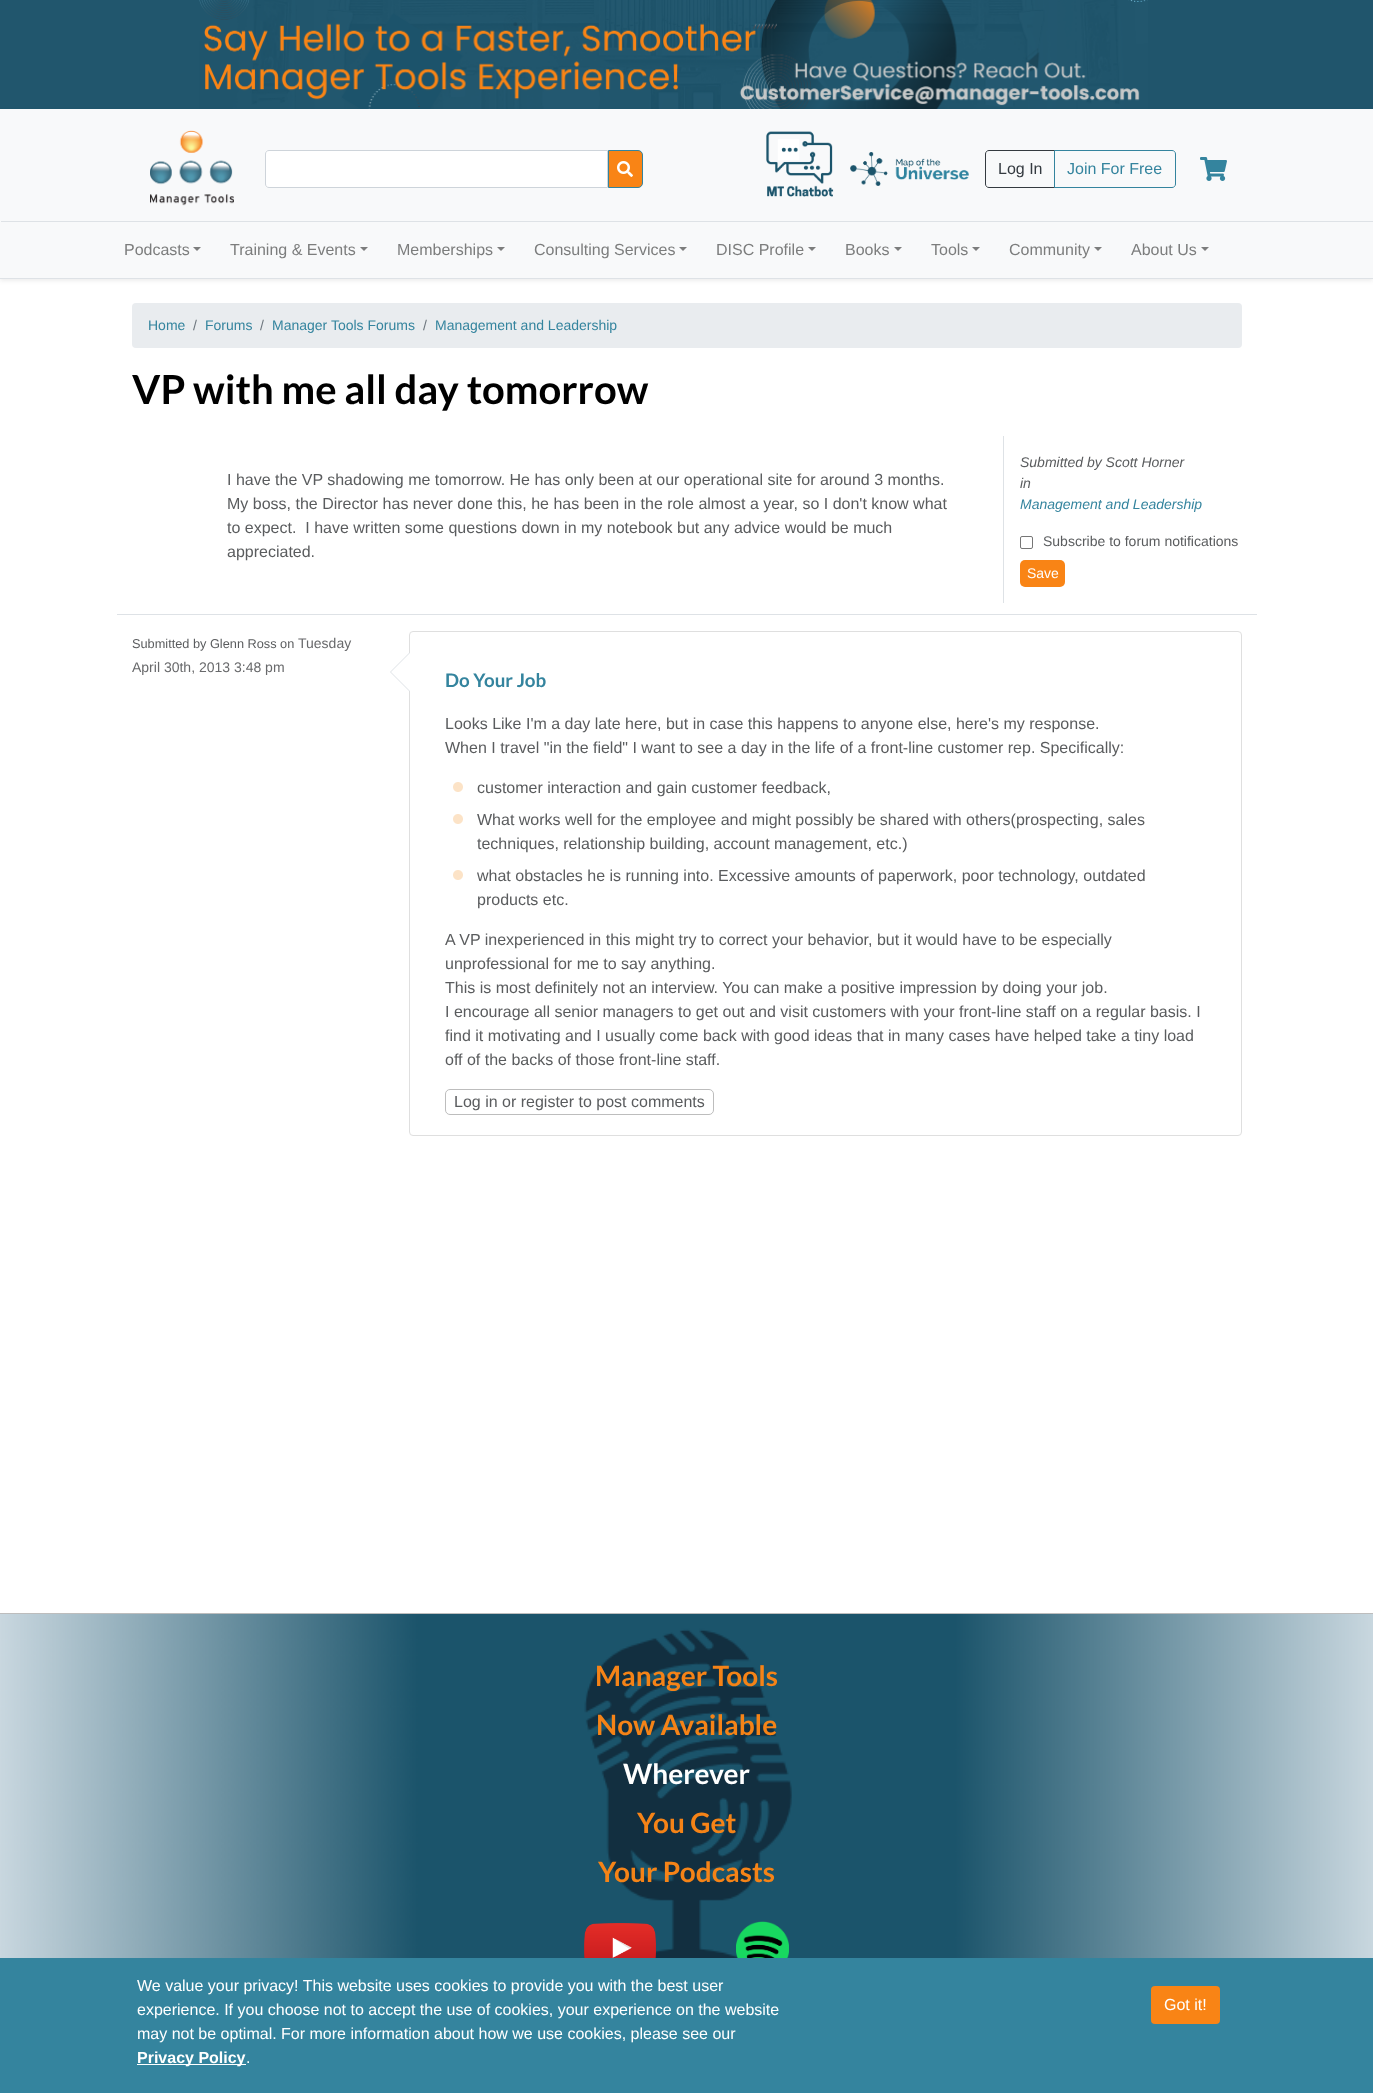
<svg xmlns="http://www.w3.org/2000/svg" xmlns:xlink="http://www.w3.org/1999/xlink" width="1373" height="2093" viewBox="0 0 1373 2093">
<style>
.cls-1{font:16px Liberation Sans;fill:#343a40}
.cls-2{font:16px Liberation Sans;fill:#34849e}
.cls-3{font:16px Liberation Sans;fill:#7c7d7d}
.cls-4{font:14px Liberation Sans;fill:#34849e}
.cls-5{font:14px Liberation Sans;fill:#6c757d}
.cls-6{font:bold 40px Lato;fill:#000000}
.cls-7{font:16px Liberation Sans;fill:#5a5c5e}
.cls-8{font:italic 14px Liberation Sans;fill:#5a5c5e}
.cls-9{font:italic 14px Liberation Sans;fill:#34849e}
.cls-10{font:14px Liberation Sans;fill:#5a5c5e}
.cls-11{font:14px Liberation Sans;fill:#ffffff}
.cls-12{font:12.75px Liberation Sans;fill:#5a5c5e}
.cls-13{font:14px Liberation Sans;fill:#68696b}
.cls-14{font:bold 18.75px Lato;fill:#34849e}
.cls-15{font:bold 28px Lato;fill:#f58317}
.cls-16{font:bold 28px Lato;fill:#ffffff}
.cls-17{font:16px Liberation Sans;fill:#ffffff}
.cls-18{font:bold 16px Liberation Sans;fill:#ffffff}
</style>
<defs>
<linearGradient id="g1" gradientUnits="userSpaceOnUse" x1="661" y1="214" x2="712" y2="-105"><stop offset="0.5" stop-color="#21566d"/><stop offset="0.5" stop-color="#20556c"/></linearGradient>
</defs>
<rect width="100%" height="100%" fill="#ffffff"/>
<rect fill="url(#g1)" x="0" y="0" width="1373" height="109"/>
<image xlink:href="image0.png" x="199" y="0" width="949" height="109"/>
<rect fill="#000000" fill-opacity="0.07" filter="blur(2px)" x="0" y="111" width="1373" height="170"/>
<rect fill="#f8f9fa" x="0" y="109" width="1373" height="169"/>
<rect fill="#dee2e6" x="0" y="278" width="1373" height="1"/>
<image xlink:href="image1.png" x="150" y="130" width="84" height="76"/>
<path fill="#ffffff" stroke="#ced4da" d="M269 150.5H607.5V187.5H269C267 187.5 265.5 186 265.5 184V154C265.5 152 267 150.5 269 150.5Z"/>
<path fill="#f98415" stroke="#34849e" d="M608.5 150.5H638C640.5 150.5 642.5 152.5 642.5 155V183C642.5 185.5 640.5 187.5 638 187.5H608.5Z"/>
<image xlink:href="image2.png" x="617" y="161" width="16" height="16"/>
<image xlink:href="image3.png" x="766" y="131" width="68" height="66"/>
<image xlink:href="image4.png" x="850" y="152" width="119" height="34"/>
<path fill="none" stroke="#343a40" d="M989 150.5H1054.5V187.5H989C987 187.5 985.5 186 985.5 184V154C985.5 152 987 150.5 989 150.5Z"/>
<path fill="none" stroke="#34849e" d="M1054.5 150.5H1172C1174 150.5 1175.5 152 1175.5 154V184C1175.5 186 1174 187.5 1172 187.5H1054.5Z"/>
<image xlink:href="image5.png" x="1200" y="157" width="27" height="24"/>
<rect fill="#dee2e6" x="1" y="221" width="1372" height="1"/>
<path fill="#7c7d7d" d="M193 247H201L197 251Z"/>
<path fill="#7c7d7d" d="M360 247H368L364 251Z"/>
<path fill="#7c7d7d" d="M497 247H505L501 251Z"/>
<path fill="#7c7d7d" d="M679 247H687L683 251Z"/>
<path fill="#7c7d7d" d="M808 247H816L812 251Z"/>
<path fill="#7c7d7d" d="M894 247H902L898 251Z"/>
<path fill="#7c7d7d" d="M972 247H980L976 251Z"/>
<path fill="#7c7d7d" d="M1094 247H1102L1098 251Z"/>
<path fill="#7c7d7d" d="M1201 247H1209L1205 251Z"/>
<rect fill="#e9ecef" x="132" y="303" width="1110" height="45" rx="4"/>
<rect fill="#dee2e6" x="117" y="614" width="1140" height="1"/>
<rect fill="#dee2e6" x="1003" y="436" width="1" height="167"/>
<rect fill="none" stroke="#767676" x="1020.5" y="536.5" width="12" height="12" rx="1.5"/>
<rect fill="#f98415" x="1020" y="560" width="45" height="27" rx="5"/>
<rect fill="none" stroke="#dfdfdf" x="409.5" y="631.5" width="832" height="504" rx="3.5"/>
<path fill="#dee2e6" d="M410 652V692L390 672Z"/>
<path fill="#ffffff" d="M411 652V692L391 672Z"/>
<image xlink:href="image6.png" x="453" y="782" width="10" height="10"/>
<image xlink:href="image6.png" x="453" y="814" width="10" height="10"/>
<image xlink:href="image6.png" x="453" y="870" width="10" height="10"/>
<rect fill="none" stroke="#bdbdbd" x="445.5" y="1089.5" width="268" height="25" rx="4.5"/>
<rect fill="#bdbdbd" x="0" y="1613" width="1373" height="1"/>
<image xlink:href="image7.png" x="0" y="1614" width="1373" height="344"/>
<image xlink:href="image8.png" x="584" y="1923" width="72" height="35"/>
<image xlink:href="image9.png" x="736" y="1921" width="53" height="37"/>
<rect fill="#34849e" x="0" y="1958" width="1373" height="135"/>
<rect fill="#ffffff" x="137" y="2064" width="109" height="1"/>
<rect fill="#f98415" x="1151" y="1986" width="69" height="38" rx="4"/>
<text class="cls-1" x="998" y="174">Log In</text>
<text class="cls-2" x="1067" y="174">Join For Free</text>
<text class="cls-3" x="124" y="255">Podcasts</text>
<text class="cls-3" x="230" y="255">Training &amp; Events</text>
<text class="cls-3" x="397" y="255">Memberships</text>
<text class="cls-3" x="534" y="255">Consulting Services</text>
<text class="cls-3" x="716" y="255">DISC Profile</text>
<text class="cls-3" x="845" y="255">Books</text>
<text class="cls-3" x="931" y="255">Tools</text>
<text class="cls-3" x="1009" y="255">Community</text>
<text class="cls-3" x="1131" y="255">About Us</text>
<text class="cls-4" x="148" y="330">Home</text>
<text class="cls-5" x="193" y="330">/</text>
<text class="cls-4" x="205" y="330">Forums</text>
<text class="cls-5" x="260" y="330">/</text>
<text class="cls-4" x="272" y="330">Manager Tools Forums</text>
<text class="cls-5" x="423" y="330">/</text>
<text class="cls-4" x="435" y="330">Management and Leadership</text>
<text class="cls-6" x="132" y="404">VP with me all day tomorrow</text>
<text class="cls-7" xml:space="preserve"><tspan x="227" y="485">I have the VP shadowing me tomorrow. He has only been at our operational site for around 3 months.</tspan><tspan x="227" y="509">My boss, the Director has never done this, he has been in the role almost a year, so I don't know what</tspan><tspan x="227" y="533">to expect.  I have written some questions down in my notebook but any advice would be much</tspan><tspan x="227" y="557">appreciated.</tspan></text>
<text class="cls-8"><tspan x="1020" y="467">Submitted by Scott Horner</tspan><tspan x="1020" y="488">in</tspan></text>
<text class="cls-9" x="1020" y="509">Management and Leadership</text>
<text class="cls-10" x="1043" y="546">Subscribe to forum notifications</text>
<text class="cls-11" x="1027" y="578">Save</text>
<text class="cls-12" x="132" y="648">Submitted by Glenn Ross on</text>
<text class="cls-13" x="298" y="648">Tuesday</text>
<text class="cls-13" x="132" y="672">April 30th, 2013 3:48 pm</text>
<text class="cls-14" x="445" y="687">Do Your Job</text>
<text class="cls-7"><tspan x="445" y="729">Looks Like I'm a day late here, but in case this happens to anyone else, here's my response.</tspan><tspan x="445" y="753">When I travel "in the field" I want to see a day in the life of a front-line customer rep. Specifically:</tspan></text>
<text class="cls-7" x="477" y="793">customer interaction and gain customer feedback,</text>
<text class="cls-7"><tspan x="477" y="825">What works well for the employee and might possibly be shared with others(prospecting, sales</tspan><tspan x="477" y="849">techniques, relationship building, account management, etc.)</tspan></text>
<text class="cls-7"><tspan x="477" y="881">what obstacles he is running into. Excessive amounts of paperwork, poor technology, outdated</tspan><tspan x="477" y="905">products etc.</tspan></text>
<text class="cls-7"><tspan x="445" y="945">A VP inexperienced in this might try to correct your behavior, but it would have to be especially</tspan><tspan x="445" y="969">unprofessional for me to say anything.</tspan><tspan x="445" y="993">This is most definitely not an interview. You can make a positive impression by doing your job.</tspan><tspan x="445" y="1017">I encourage all senior managers to get out and visit customers with your front-line staff on a regular basis. I</tspan><tspan x="445" y="1041">find it motivating and I usually come back with good ideas that in many cases have helped take a tiny load</tspan><tspan x="445" y="1065">off of the backs of those front-line staff.</tspan></text>
<text class="cls-7" x="454" y="1107">Log in or register to post comments</text>
<text class="cls-15" x="595" y="1686">Manager Tools</text>
<text class="cls-15" x="596" y="1735">Now Available</text>
<text class="cls-16" x="623" y="1784">Wherever</text>
<text class="cls-15" x="637" y="1833">You Get</text>
<text class="cls-15" x="598" y="1882">Your Podcasts</text>
<text class="cls-17"><tspan x="137" y="1991">We value your privacy! This website uses cookies to provide you with the best user</tspan><tspan x="137" y="2015">experience. If you choose not to accept the use of cookies, your experience on the website</tspan><tspan x="137" y="2039">may not be optimal. For more information about how we use cookies, please see our</tspan></text>
<text class="cls-18" x="137" y="2063">Privacy Policy</text>
<text class="cls-17" x="246" y="2063">.</text>
<text class="cls-17" x="1164" y="2010">Got it!</text>
</svg>
